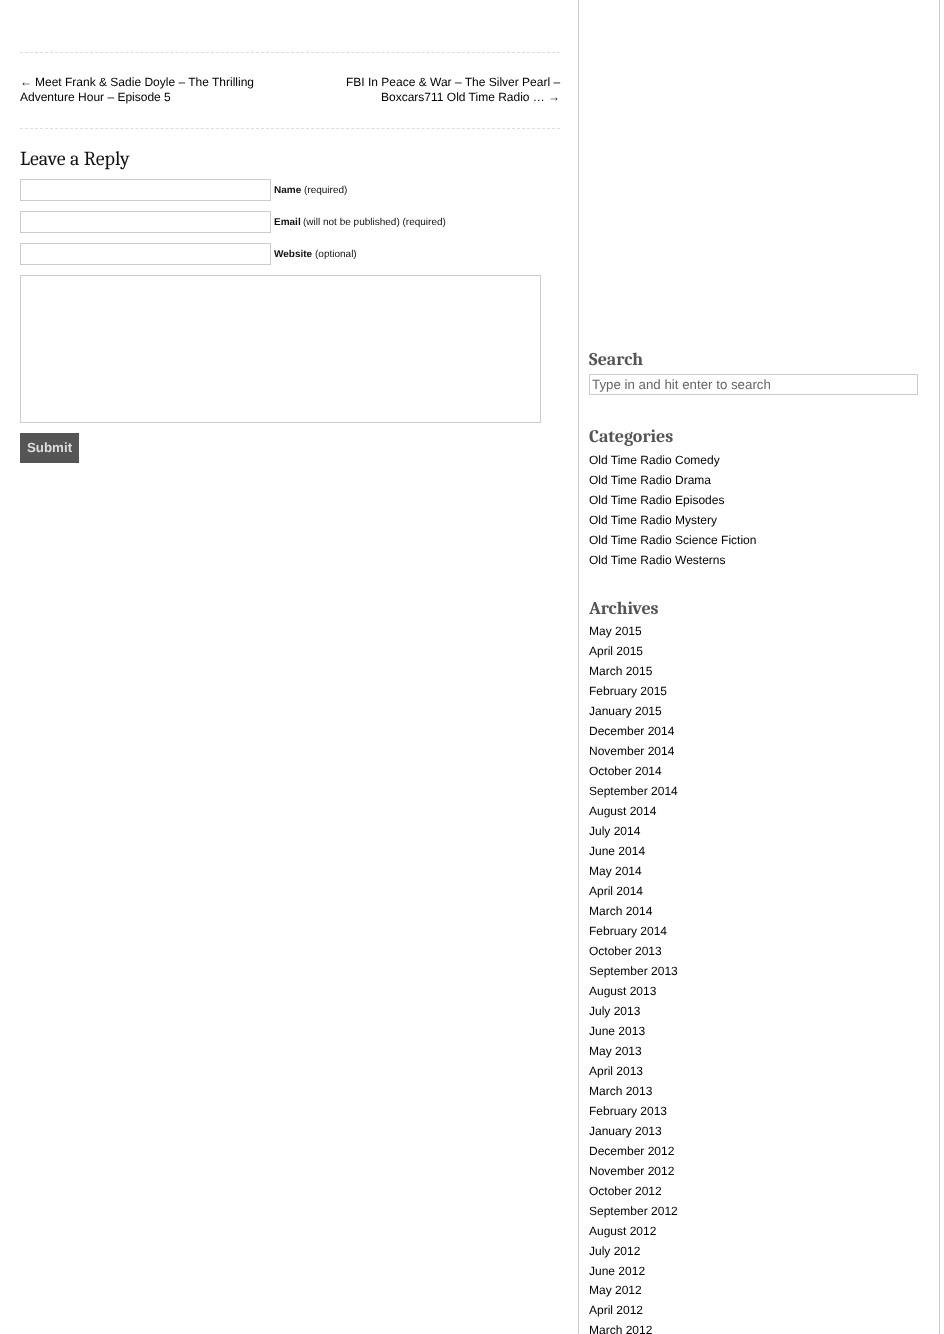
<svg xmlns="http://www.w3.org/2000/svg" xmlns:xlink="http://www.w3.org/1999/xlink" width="944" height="1334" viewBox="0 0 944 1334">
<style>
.cls-1{font:12px Liberation Sans;fill:#111111}
.cls-2{font:12px Liberation Sans;fill:#000000}
.cls-3{font:20px Caladea;fill:#111111}
.cls-4{font:bold 10px Liberation Sans;fill:#111111}
.cls-5{font:10px Liberation Sans;fill:#111111}
.cls-6{font:bold 13.3px Liberation Sans;fill:#dddddd}
.cls-7{font:bold 18px Caladea;fill:#555555}
.cls-8{font:13.3px Liberation Sans;fill:#666666}
</style>
<rect width="100%" height="100%" fill="#ffffff"/>
<path fill="none" stroke="#dddddd" stroke-dasharray="3 2.02" d="M20 52.5H560"/>
<path fill="none" stroke="#dddddd" stroke-dasharray="3 2.02" d="M20 128.5H560"/>
<rect fill="none" stroke="#cccccc" x="20.5" y="179.5" width="250" height="21"/>
<rect fill="none" stroke="#cccccc" x="20.5" y="211.5" width="250" height="21"/>
<rect fill="none" stroke="#cccccc" x="20.5" y="243.5" width="250" height="21"/>
<rect fill="none" stroke="#cccccc" x="20.5" y="275.5" width="520" height="147"/>
<rect fill="#555555" x="20" y="433" width="59" height="30"/>
<rect fill="#cccccc" x="939" y="0" width="1" height="1334"/>
<rect fill="#cccccc" x="578" y="0" width="1" height="1334"/>
<rect fill="none" stroke="#cccccc" x="589.5" y="374.5" width="328" height="20"/>
<text class="cls-1" x="20" y="86">←</text>
<text class="cls-2" x="35" y="86">Meet Frank &amp; Sadie Doyle – The Thrilling</text>
<text class="cls-2" x="20" y="101">Adventure Hour – Episode 5</text>
<text class="cls-2" x="346" y="86">FBI In Peace &amp; War – The Silver Pearl –</text>
<text class="cls-2" x="381" y="101">Boxcars711 Old Time Radio …</text>
<text class="cls-1" x="548" y="101">→</text>
<text class="cls-3" x="20" y="165">Leave a Reply</text>
<text class="cls-4" x="274" y="193">Name</text>
<text class="cls-5" x="304" y="193">(required)</text>
<text class="cls-4" x="274" y="225">Email</text>
<text class="cls-5" x="303" y="225">(will not be published) (required)</text>
<text class="cls-4" x="274" y="257">Website</text>
<text class="cls-5" x="315" y="257">(optional)</text>
<text class="cls-6" x="27" y="452">Submit</text>
<text class="cls-7" x="589" y="365">Search</text>
<text class="cls-8" x="592" y="389">Type in and hit enter to search</text>
<text class="cls-7" x="589" y="442">Categories</text>
<text class="cls-2"><tspan x="589" y="464">Old Time Radio Comedy</tspan><tspan x="589" y="484">Old Time Radio Drama</tspan><tspan x="589" y="504">Old Time Radio Episodes</tspan><tspan x="589" y="524">Old Time Radio Mystery</tspan><tspan x="589" y="544">Old Time Radio Science Fiction</tspan><tspan x="589" y="564">Old Time Radio Westerns</tspan></text>
<text class="cls-7" x="589" y="614">Archives</text>
<text class="cls-2"><tspan x="589" y="635">May 2015</tspan><tspan x="589" y="655">April 2015</tspan><tspan x="589" y="675">March 2015</tspan><tspan x="589" y="695">February 2015</tspan><tspan x="589" y="715">January 2015</tspan><tspan x="589" y="735">December 2014</tspan><tspan x="589" y="755">November 2014</tspan><tspan x="589" y="775">October 2014</tspan><tspan x="589" y="795">September 2014</tspan><tspan x="589" y="815">August 2014</tspan><tspan x="589" y="835">July 2014</tspan><tspan x="589" y="855">June 2014</tspan><tspan x="589" y="875">May 2014</tspan><tspan x="589" y="895">April 2014</tspan><tspan x="589" y="915">March 2014</tspan><tspan x="589" y="935">February 2014</tspan><tspan x="589" y="955">October 2013</tspan><tspan x="589" y="975">September 2013</tspan><tspan x="589" y="995">August 2013</tspan><tspan x="589" y="1015">July 2013</tspan><tspan x="589" y="1035">June 2013</tspan><tspan x="589" y="1055">May 2013</tspan><tspan x="589" y="1075">April 2013</tspan><tspan x="589" y="1095">March 2013</tspan><tspan x="589" y="1115">February 2013</tspan><tspan x="589" y="1135">January 2013</tspan><tspan x="589" y="1155">December 2012</tspan><tspan x="589" y="1175">November 2012</tspan><tspan x="589" y="1195">October 2012</tspan><tspan x="589" y="1215">September 2012</tspan><tspan x="589" y="1235">August 2012</tspan><tspan x="589" y="1255">July 2012</tspan><tspan x="589" y="1275">June 2012</tspan><tspan x="589" y="1294">May 2012</tspan><tspan x="589" y="1314">April 2012</tspan><tspan x="589" y="1334">March 2012</tspan></text>
</svg>
